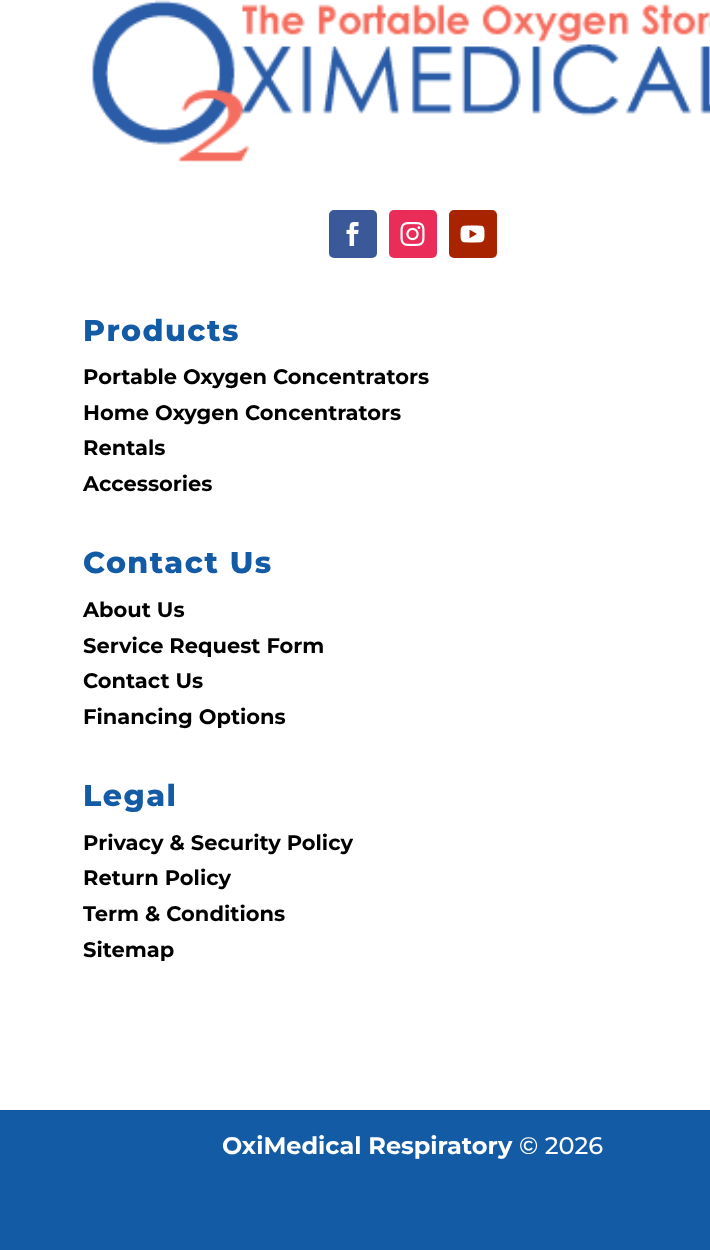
<svg xmlns="http://www.w3.org/2000/svg" xmlns:xlink="http://www.w3.org/1999/xlink" width="710" height="1250" viewBox="0 0 710 1250">
<style>
.cls-1{font:100 30px Montserrat;letter-spacing:1.5px;fill:#145ba6}
.cls-2{font:100 21px 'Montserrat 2';fill:#000000}
.cls-3{font:100 24px 'Montserrat 2';fill:#ffffff}
.cls-4{font:100 24px 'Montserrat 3';fill:#ffffff}
</style>
<rect width="100%" height="100%" fill="#ffffff"/>
<image xlink:href="image0.png" x="92" y="0" width="618" height="162"/>
<rect fill="#3b5998" x="329" y="210" width="48" height="48" rx="5"/>
<image xlink:href="image1.png" x="346" y="222" width="13" height="24"/>
<rect fill="#ea2c59" x="389" y="210" width="48" height="48" rx="5"/>
<image xlink:href="image2.png" x="400" y="222" width="25" height="24"/>
<rect fill="#a82400" x="449" y="210" width="48" height="48" rx="5"/>
<image xlink:href="image3.png" x="460" y="225" width="25" height="18"/>
<rect fill="#145ba6" x="0" y="1110" width="710" height="140"/>
<text class="cls-1" x="83" y="341">Products</text>
<text class="cls-2"><tspan x="83" y="384">Portable Oxygen Concentrators</tspan><tspan x="83" y="420">Home Oxygen Concentrators</tspan><tspan x="83" y="455">Rentals</tspan><tspan x="83" y="491">Accessories</tspan></text>
<text class="cls-1" x="83" y="573">Contact Us</text>
<text class="cls-2"><tspan x="83" y="617">About Us</tspan><tspan x="83" y="653">Service Request Form</tspan><tspan x="83" y="688">Contact Us</tspan><tspan x="83" y="724">Financing Options</tspan></text>
<text class="cls-1" x="83" y="806">Legal</text>
<text class="cls-2"><tspan x="83" y="850">Privacy &amp; Security Policy</tspan><tspan x="83" y="885">Return Policy</tspan><tspan x="83" y="921">Term &amp; Conditions</tspan><tspan x="83" y="957">Sitemap</tspan></text>
<text class="cls-3" x="222" y="1154">OxiMedical Respiratory</text>
<text class="cls-4" x="519" y="1154">© 2026</text>
</svg>
